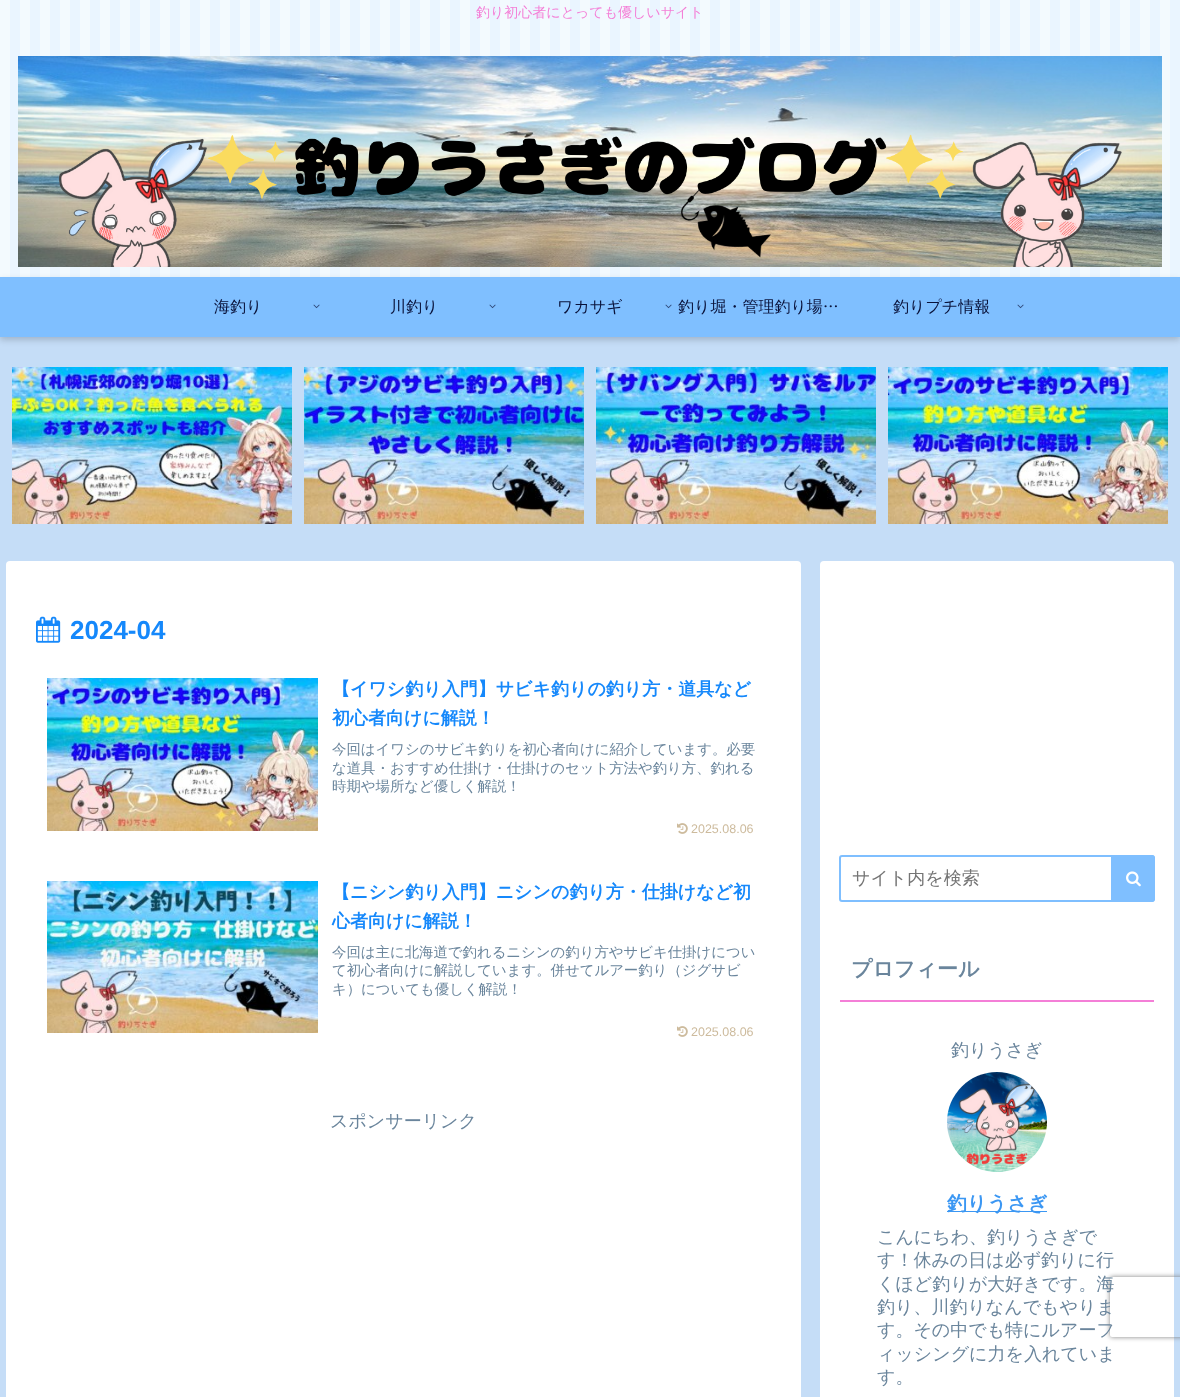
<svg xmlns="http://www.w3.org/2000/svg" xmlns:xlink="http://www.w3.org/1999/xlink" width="1180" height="1397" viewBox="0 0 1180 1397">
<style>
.cls-1{font:500 14px WenQuanYi Zen Hei;fill:#f47fd7}
.cls-2{font:500 16px WenQuanYi Zen Hei;fill:#09123a}
.cls-3{font:bold 26px Liberation Sans;fill:#1588fb}
.cls-4{font:bold 18px WenQuanYi Zen Hei;fill:#1588fb}
.cls-5{font:500 14.4px WenQuanYi Zen Hei;fill:#6a859c}
.cls-6{font:12.5px Liberation Sans;fill:#cdbb9d}
.cls-7{font:500 18px WenQuanYi Zen Hei;fill:#6a859c}
.cls-8{font:500 18px WenQuanYi Zen Hei;fill:#757575}
.cls-9{font:bold 21px WenQuanYi Zen Hei;fill:#6a859c}
.cls-10{font:bold 19.75px WenQuanYi Zen Hei;fill:#3b97f3}
</style>
<defs>
<clipPath id="clip1"><path d="M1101 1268H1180V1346H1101ZM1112 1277H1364C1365 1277 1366 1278 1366 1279V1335C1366 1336 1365 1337 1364 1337H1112C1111 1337 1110 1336 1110 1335V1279C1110 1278 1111 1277 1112 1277Z" clip-rule="evenodd"/></clipPath>
</defs>
<rect width="100%" height="100%" fill="#c5ddf7"/>
<image xlink:href="image0.png" x="0" y="0" width="1180" height="277"/>
<image xlink:href="image1.png" x="18" y="56" width="1144" height="211"/>
<rect fill="#000000" fill-opacity="0.18" filter="blur(3px)" x="0" y="280" width="1180" height="60"/>
<rect fill="#7fbfff" x="0" y="277" width="1180" height="60"/>
<image xlink:href="image2.png" x="313" y="304" width="7" height="5"/>
<image xlink:href="image2.png" x="489" y="304" width="7" height="5"/>
<image xlink:href="image2.png" x="665" y="304" width="7" height="5"/>
<image xlink:href="image2.png" x="1017" y="304" width="7" height="5"/>
<image xlink:href="image3.png" x="12" y="367" width="280" height="157"/>
<image xlink:href="image4.png" x="304" y="367" width="280" height="157"/>
<image xlink:href="image5.png" x="596" y="367" width="280" height="157"/>
<image xlink:href="image6.png" x="888" y="367" width="280" height="157"/>
<rect fill="#ffffff" x="6" y="561" width="795" height="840" rx="4"/>
<image xlink:href="image7.png" x="36" y="616" width="25" height="27"/>
<image xlink:href="image8.png" x="47" y="678" width="271" height="153"/>
<image xlink:href="image9.png" x="677" y="823" width="11" height="11"/>
<image xlink:href="image10.png" x="47" y="881" width="271" height="152"/>
<image xlink:href="image9.png" x="677" y="1026" width="11" height="11"/>
<rect fill="#ffffff" x="820" y="561" width="354" height="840" rx="4"/>
<rect fill="none" stroke="#7fbfff" stroke-width="2" x="840" y="856" width="314" height="45" rx="2"/>
<path fill="#7fbfff" d="M1111 855H1152C1153.5 855 1155 856.5 1155 858V899C1155 900.5 1153.5 902 1152 902H1111Z"/>
<image xlink:href="image11.png" x="1126" y="871" width="15" height="16"/>
<rect fill="#f47fd7" x="840" y="1000" width="314" height="2"/>
<image xlink:href="image12.png" x="947" y="1072" width="100" height="100"/>
<rect fill="#3b97f3" x="947" y="1211" width="100" height="1"/>
<g clip-path="url(#clip1)">
<rect fill="#808080" filter="blur(2.5px)" x="1110" y="1277" width="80" height="60" rx="2"/>
</g>
<text class="cls-1" x="476" y="17">釣り初心者にとっても優しいサイト</text>
<text class="cls-2" x="214" y="312">海釣り</text>
<text class="cls-2" x="390" y="312">川釣り</text>
<text class="cls-2" x="557" y="312">ワカサギ</text>
<text class="cls-2" x="678" y="312">釣り堀・管理釣り場…</text>
<text class="cls-2" x="893" y="312">釣りプチ情報</text>
<text class="cls-3" x="70" y="639">2024-04</text>
<text class="cls-4"><tspan x="332" y="695">【イワシ釣り入門】サビキ釣りの釣り方・道具など</tspan><tspan x="332" y="724">初心者向けに解説！</tspan></text>
<text class="cls-5"><tspan x="332" y="754">今回はイワシのサビキ釣りを初心者向けに紹介しています。必要</tspan><tspan x="332" y="773">な道具・おすすめ仕掛け・仕掛けのセット方法や釣り方、釣れる</tspan><tspan x="332" y="791">時期や場所など優しく解説！</tspan></text>
<text class="cls-6" x="691" y="833">2025.08.06</text>
<text class="cls-4"><tspan x="332" y="898">【ニシン釣り入門】ニシンの釣り方・仕掛けなど初</tspan><tspan x="332" y="927">心者向けに解説！</tspan></text>
<text class="cls-5"><tspan x="332" y="957">今回は主に北海道で釣れるニシンの釣り方やサビキ仕掛けについ</tspan><tspan x="332" y="975">て初心者向けに解説しています。併せてルアー釣り（ジグサビ</tspan><tspan x="332" y="994">キ）についても優しく解説！</tspan></text>
<text class="cls-6" x="691" y="1036">2025.08.06</text>
<text class="cls-7" x="330" y="1127">スポンサーリンク</text>
<text class="cls-8" x="852" y="884">サイト内を検索</text>
<text class="cls-9" x="851" y="976">プロフィール</text>
<text class="cls-7" x="951" y="1056">釣りうさぎ</text>
<text class="cls-10" x="947" y="1210">釣りうさぎ</text>
<text class="cls-7"><tspan x="877" y="1243">こんにちわ、釣りうさぎで</tspan><tspan x="877" y="1266">す！休みの日は必ず釣りに行</tspan><tspan x="877" y="1290">くほど釣りが大好きです。海</tspan><tspan x="877" y="1313">釣り、川釣りなんでもやりま</tspan><tspan x="877" y="1336">す。その中でも特にルアーフ</tspan><tspan x="877" y="1360">ィッシングに力を入れていま</tspan><tspan x="877" y="1383">す。</tspan></text>
</svg>
